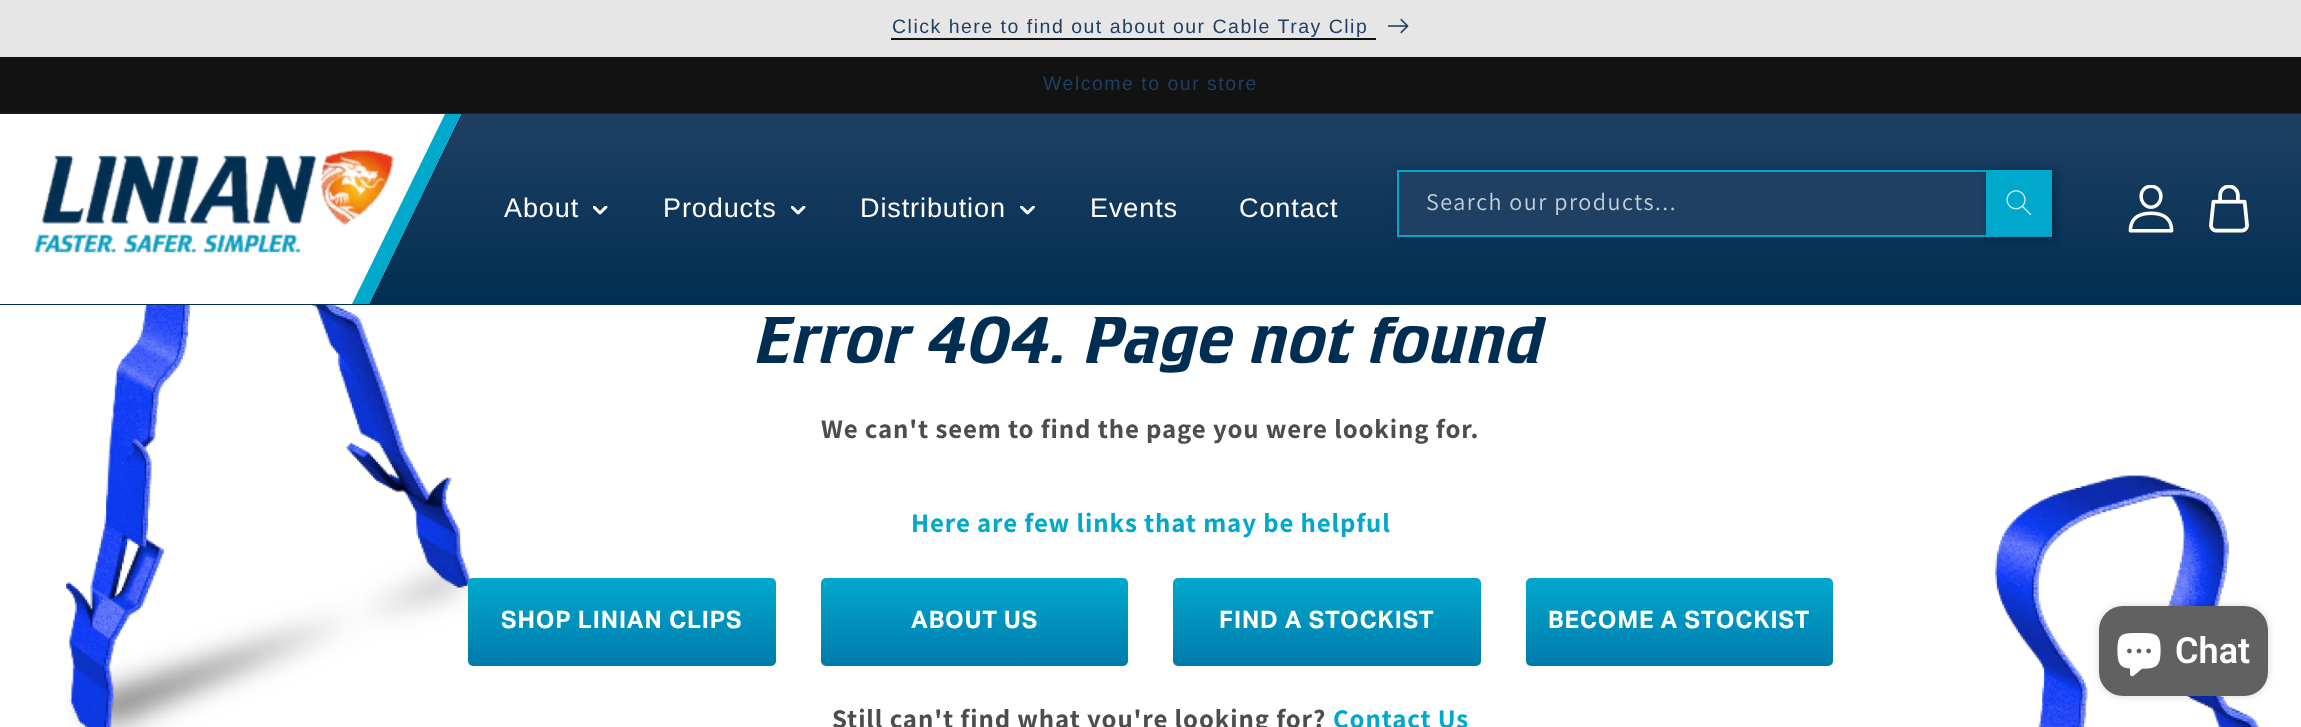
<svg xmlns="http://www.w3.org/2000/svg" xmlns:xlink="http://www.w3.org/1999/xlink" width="2301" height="727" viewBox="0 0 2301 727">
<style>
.cls-1{font:19.5px Liberation Sans;letter-spacing:1.5px;fill:#1f4063}
.cls-2{font:27px Liberation Sans;letter-spacing:0.9px;fill:#ffffff}
.cls-3{font:24px Assistant;letter-spacing:1.5px;fill:#c7cfd8}
.cls-4{font:69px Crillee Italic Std;fill:#002e52}
.cls-5{font:bold 27px Assistant;letter-spacing:0.9px;fill:#4d4d4d}
.cls-6{font:bold 27px Assistant;letter-spacing:0.9px;fill:#00a8cc}
.cls-7{font:bold 24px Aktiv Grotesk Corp;letter-spacing:0.9px;fill:#ffffff}
.cls-8{font:600 36px Roboto;fill:#ffffff}
</style>
<defs>
<linearGradient id="g1" gradientUnits="userSpaceOnUse" x1="1151" y1="114" x2="1151" y2="305"><stop offset="0" stop-color="#1f4063"/><stop offset="1" stop-color="#002e52"/></linearGradient>
<linearGradient id="g2" gradientUnits="userSpaceOnUse" x1="622" y1="578" x2="622" y2="666"><stop offset="0" stop-color="#00a8cc"/><stop offset="1" stop-color="#007bae"/></linearGradient>
<linearGradient id="g3" gradientUnits="userSpaceOnUse" x1="974" y1="578" x2="974" y2="666"><stop offset="0" stop-color="#00a8cc"/><stop offset="1" stop-color="#007bae"/></linearGradient>
<linearGradient id="g4" gradientUnits="userSpaceOnUse" x1="1327" y1="578" x2="1327" y2="666"><stop offset="0" stop-color="#00a8cc"/><stop offset="1" stop-color="#007bae"/></linearGradient>
<linearGradient id="g5" gradientUnits="userSpaceOnUse" x1="1679" y1="578" x2="1679" y2="666"><stop offset="0" stop-color="#00a8cc"/><stop offset="1" stop-color="#007bae"/></linearGradient>
</defs>
<rect width="100%" height="100%" fill="#ffffff"/>
<rect fill="#e1e1e1" x="0" y="56" width="2301" height="1"/>
<rect fill="#e6e6e6" x="0" y="0" width="2301" height="56"/>
<rect fill="#121212" x="891" y="38" width="485" height="2"/>
<image xlink:href="image0.png" x="1388" y="18" width="21" height="16"/>
<rect fill="#121212" x="0" y="57" width="2301" height="57"/>
<rect fill="#ffffff" fill-opacity="0.08" x="0" y="113" width="2301" height="1"/>
<rect fill="url(#g1)" x="0" y="114" width="2301" height="191"/>
<path fill="#ffffff" d="M0 114V304H369L461 114Z"/>
<image xlink:href="image1.png" x="34" y="149" width="360" height="104"/>
<path fill="#00a8cc" d="M352 304L445 114H461L369 304Z"/>
<image xlink:href="image2.png" x="593" y="206" width="15" height="9"/>
<image xlink:href="image2.png" x="791" y="206" width="15" height="9"/>
<image xlink:href="image3.png" x="1020" y="206" width="15" height="9"/>
<rect fill="#000000" fill-opacity="0.16" filter="blur(4.5px)" x="1398" y="171" width="656" height="68"/>
<rect fill="#1f4063" x="1399" y="172" width="587" height="63"/>
<rect fill="none" stroke="#00a8cc" stroke-width="2" x="1398" y="171" width="653" height="65"/>
<rect fill="#000000" fill-opacity="0.16" filter="blur(4.5px)" x="1988" y="171" width="66" height="66"/>
<rect fill="#00a8cc" x="1986" y="170" width="66" height="66"/>
<image xlink:href="image4.png" x="2006" y="190" width="26" height="26"/>
<image xlink:href="image5.png" x="2128" y="185" width="46" height="48"/>
<image xlink:href="image6.png" x="2209" y="185" width="40" height="48"/>
<image xlink:href="image7.png" x="65" y="305" width="406" height="422"/>
<rect fill="url(#g2)" x="468" y="578" width="308" height="88" rx="5"/>
<rect fill="url(#g3)" x="821" y="578" width="307" height="88" rx="5"/>
<rect fill="url(#g4)" x="1173" y="578" width="308" height="88" rx="5"/>
<rect fill="url(#g5)" x="1526" y="578" width="307" height="88" rx="5"/>
<image xlink:href="image8.png" x="1994" y="475" width="265" height="252"/>
<rect fill="#000000" fill-opacity="0.15" filter="blur(4px)" x="2099" y="606" width="169" height="90" rx="24"/>
<rect fill="#616161" x="2099" y="606" width="169" height="90" rx="24"/>
<image xlink:href="image9.png" x="2117" y="633" width="44" height="44"/>
<text class="cls-1" x="892" y="33">Click here to find out about our Cable Tray Clip</text>
<text class="cls-1" x="1043" y="90">Welcome to our store</text>
<text class="cls-2" x="504" y="217">About</text>
<text class="cls-2" x="663" y="217">Products</text>
<text class="cls-2" x="860" y="217">Distribution</text>
<text class="cls-2" x="1090" y="217">Events</text>
<text class="cls-2" x="1239" y="217">Contact</text>
<text class="cls-3" x="1426" y="210">Search our products...</text>
<text class="cls-4" x="756" y="363">Error 404. Page not found</text>
<text class="cls-5" x="821" y="438">We can't seem to find the page you were looking for.</text>
<text class="cls-6" x="911" y="532">Here are few links that may be helpful</text>
<text class="cls-7" x="501" y="628">SHOP LINIAN CLIPS</text>
<text class="cls-7" x="911" y="628">ABOUT US</text>
<text class="cls-7" x="1219" y="628">FIND A STOCKIST</text>
<text class="cls-7" x="1548" y="628">BECOME A STOCKIST</text>
<text class="cls-5" x="832" y="728">Still can't find what you're looking for?</text>
<text class="cls-6" x="1333" y="728">Contact Us</text>
<text class="cls-8" x="2175" y="663">Chat</text>
</svg>
